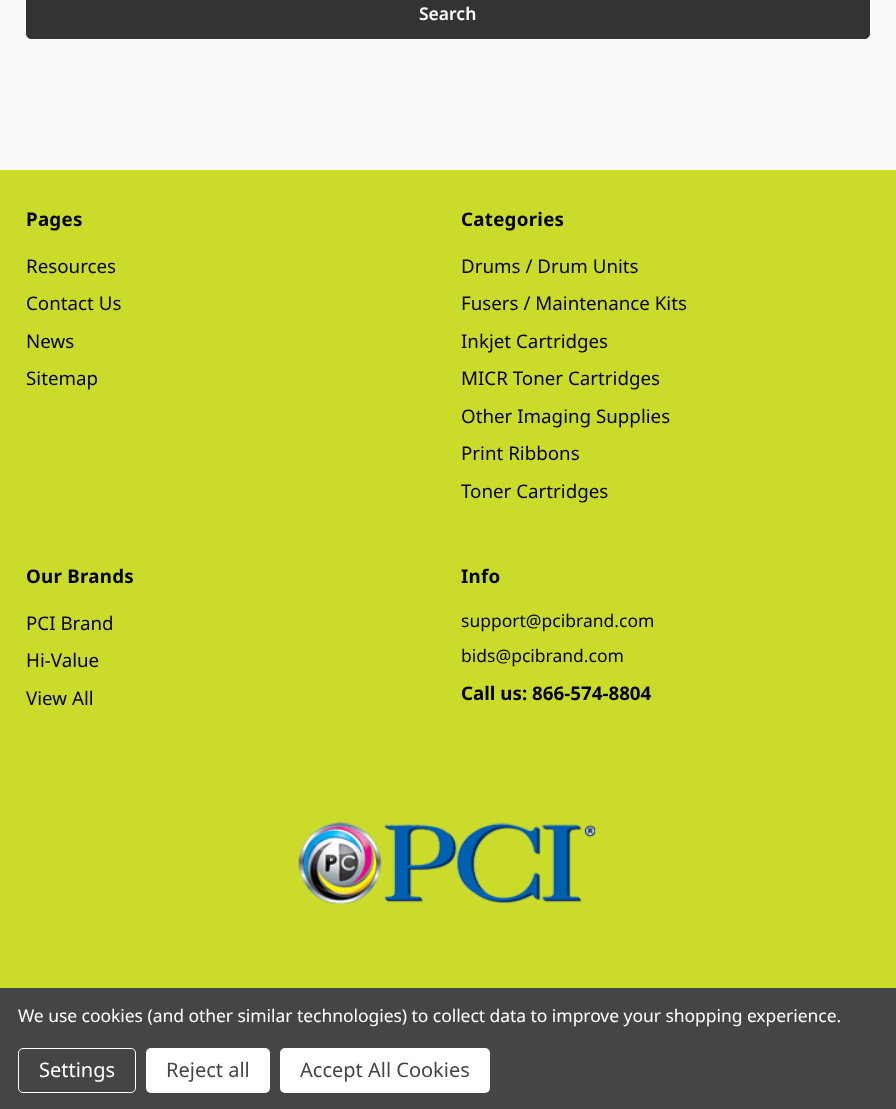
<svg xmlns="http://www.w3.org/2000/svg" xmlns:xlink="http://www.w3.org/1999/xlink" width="896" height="1109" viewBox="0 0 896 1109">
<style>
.cls-1{font:600 17.5px Noto Sans;fill:#ffffff}
.cls-2{font:bold 18.75px Noto Sans;letter-spacing:0.25px;fill:#000000}
.cls-3{font:18.75px Noto Sans;fill:#000000}
.cls-4{font:17.5px Noto Sans;fill:#000000}
.cls-5{font:bold 18.75px Noto Sans;fill:#000000}
.cls-6{font:17.5px Noto Sans;letter-spacing:-0.05px;fill:#ffffff}
.cls-7{font:20px Noto Sans;fill:#ffffff}
.cls-8{font:20px Noto Sans;fill:#454545}
</style>
<rect width="100%" height="100%" fill="#fafafa"/>
<rect fill="#333333" stroke="#333333" x="26.5" y="-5.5" width="843" height="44" rx="4.5"/>
<rect fill="#cadb2a" x="0" y="170" width="896" height="818"/>
<image xlink:href="image0.png" x="298" y="822" width="298" height="82"/>
<rect fill="#454545" x="0" y="988" width="896" height="121"/>
<rect fill="none" stroke="#ffffff" x="18.5" y="1048.5" width="117" height="44" rx="4.5"/>
<rect fill="#ffffff" x="146" y="1048" width="124" height="45" rx="5"/>
<rect fill="#ffffff" x="280" y="1048" width="210" height="45" rx="5"/>
<text class="cls-1" x="419" y="20">Search</text>
<text class="cls-2" x="26" y="226">Pages</text>
<text class="cls-3"><tspan x="26" y="273">Resources</tspan><tspan x="26" y="310">Contact Us</tspan></text>
<text class="cls-3"><tspan x="26" y="348">News</tspan><tspan x="26" y="385">Sitemap</tspan></text>
<text class="cls-2" x="461" y="226">Categories</text>
<text class="cls-3"><tspan x="461" y="273">Drums / Drum Units</tspan><tspan x="461" y="310">Fusers / Maintenance Kits</tspan></text>
<text class="cls-3"><tspan x="461" y="348">Inkjet Cartridges</tspan><tspan x="461" y="385">MICR Toner Cartridges</tspan></text>
<text class="cls-3"><tspan x="461" y="423">Other Imaging Supplies</tspan><tspan x="461" y="460">Print Ribbons</tspan></text>
<text class="cls-3" x="461" y="498">Toner Cartridges</text>
<text class="cls-2" x="26" y="583">Our Brands</text>
<text class="cls-3"><tspan x="26" y="630">PCI Brand</tspan><tspan x="26" y="667">Hi-Value</tspan></text>
<text class="cls-3" x="26" y="705">View All</text>
<text class="cls-2" x="461" y="583">Info</text>
<text class="cls-4" x="461" y="627">support@pcibrand.com</text>
<text class="cls-4" x="461" y="662">bids@pcibrand.com</text>
<text class="cls-5" x="461" y="700">Call us: 866-574-8804</text>
<text class="cls-6" x="18" y="1022">We use cookies (and other similar technologies) to collect data to improve your shopping experience.</text>
<text class="cls-7" x="39" y="1077">Settings</text>
<text class="cls-8" x="166" y="1077">Reject all</text>
<text class="cls-8" x="300" y="1077">Accept All Cookies</text>
</svg>
